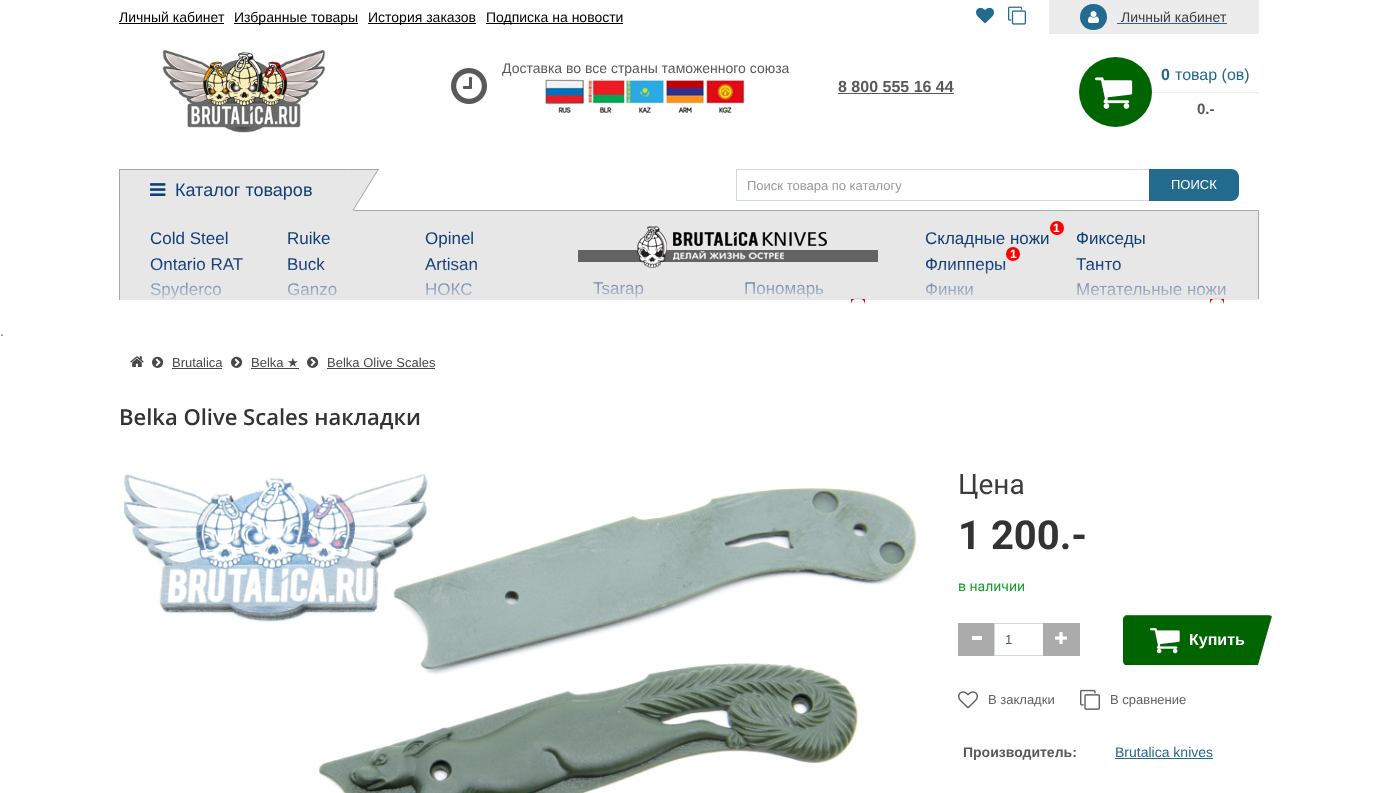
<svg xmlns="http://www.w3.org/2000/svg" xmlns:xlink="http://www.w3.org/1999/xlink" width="1377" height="793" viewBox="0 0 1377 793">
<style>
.cls-1{font:14px Liberation Sans;fill:#000000}
.cls-2{font:14px Liberation Sans;fill:#3c3c3c}
.cls-3{font:14px Liberation Sans;fill:#595959}
.cls-4{font:bold 16px Liberation Sans;fill:#595959}
.cls-5{font:bold 16px Liberation Sans;fill:#236b8e}
.cls-6{font:16px Liberation Sans;fill:#236b8e}
.cls-7{font:bold 15px Liberation Sans;fill:#595959}
.cls-8{font:13px Liberation Sans;fill:#999999}
.cls-9{font:13px Liberation Sans;fill:#ffffff}
.cls-10{font:18px Liberation Sans;fill:#123e77}
.cls-11{font:17px Liberation Sans;fill:#123e77}
.cls-12{font:bold 12px Liberation Sans;fill:#ffffff}
.cls-13{font:13px Liberation Sans;fill:#474849}
.cls-14{font:13px DejaVu Sans;fill:#474849}
.cls-15{font:600 22px Open Sans;fill:#333333}
.cls-16{font:28px Roboto;fill:#3c3c3c}
.cls-17{font:bold 40px Roboto;fill:#333333}
.cls-18{font:14px Roboto;fill:#14a128}
.cls-19{font:13px Liberation Sans;fill:#595959}
.cls-20{font:bold 16px Liberation Sans;fill:#ffffff}
.cls-21{font:13px Liberation Sans;fill:#616161}
.cls-22{font:bold 14px Liberation Sans;fill:#595959}
.cls-23{font:14px Liberation Sans;fill:#236b8e}
</style>
<defs>
<linearGradient id="g1" gradientUnits="userSpaceOnUse" x1="689" y1="299" x2="689" y2="264"><stop offset="0" stop-color="#e7e7e7" stop-opacity="0.85"/><stop offset="1" stop-color="#e7e7e7" stop-opacity="0"/></linearGradient>
</defs>
<rect width="100%" height="100%" fill="#ffffff"/>
<rect fill="#000000" x="119" y="23" width="105" height="1"/>
<rect fill="#000000" x="234" y="23" width="124" height="1"/>
<rect fill="#000000" x="368" y="23" width="108" height="1"/>
<rect fill="#000000" x="486" y="23" width="137" height="1"/>
<image xlink:href="image0.png" x="976" y="7" width="18" height="17"/>
<image xlink:href="image1.png" x="1008" y="6" width="18" height="19"/>
<rect fill="#ececec" x="1049" y="0" width="210" height="34"/>
<rect fill="#236b8e" x="1080" y="4" width="27" height="26" rx="13"/>
<image xlink:href="image2.png" x="1088" y="11" width="11" height="12"/>
<rect fill="#236b8e" x="1117" y="23" width="110" height="1"/>
<image xlink:href="image3.png" x="162" y="50" width="163" height="83"/>
<image xlink:href="image4.png" x="451" y="68" width="36" height="36"/>
<image xlink:href="image5.png" x="545" y="79" width="200" height="35"/>
<rect fill="#595959" x="838" y="93" width="116" height="1"/>
<ellipse fill="#006400" cx="1115.5" cy="92" rx="36.5" ry="35"/>
<image xlink:href="image6.png" x="1095" y="77" width="38" height="32"/>
<rect fill="#ececec" x="1152" y="92" width="107" height="1"/>
<rect fill="none" stroke="#d2dae1" x="736.5" y="169.5" width="413" height="31"/>
<path fill="#236b8e" d="M1149 169H1231C1235.5 169 1239 172.5 1239 177V193C1239 197.5 1235.5 201 1231 201H1149Z"/>
<rect fill="#e7e7e7" x="120" y="170" width="229" height="41"/>
<rect fill="#a6a6a6" x="119" y="169" width="232" height="1"/>
<rect fill="#a9a9a9" x="353" y="210" width="906" height="1"/>
<rect fill="#a9a9a9" x="1258" y="210" width="1" height="90"/>
<rect fill="#e7e7e7" x="119" y="299" width="1140" height="1"/>
<rect fill="#a9a9a9" x="119" y="210" width="1" height="90"/>
<rect fill="#a6a6a6" x="119" y="169" width="1" height="42"/>
<image xlink:href="image7.png" x="150" y="183" width="16" height="13"/>
<path fill="#e7e7e7" d="M349 169H379L353 211H323Z"/>
<path fill="#a6a6a6" d="M349 169H379L378.5 170H348.5Z"/>
<path fill="#a6a6a6" d="M378 169H379L353 211H352Z"/>
<path fill="#e7e7e7" d="M323.5 210H353.5L353 211H323Z"/>
<rect fill="#e7e7e7" x="120" y="211" width="1138" height="88"/>
<image xlink:href="image8.png" x="578" y="226" width="300" height="42"/>
<path fill="#ff0000" d="M858 298C862 298 865 301 865 305V299H851V305C851 301 854 298 858 298Z"/>
<circle fill="#ff0000" cx="1057" cy="228" r="7"/>
<path fill="#ff0000" d="M1217 298C1221 298 1224 301 1224 305V299H1210V305C1210 301 1213 298 1217 298Z"/>
<image xlink:href="image9.png" x="130" y="356" width="14" height="11"/>
<image xlink:href="image10.png" x="152" y="356" width="12" height="12"/>
<rect fill="#474849" x="172" y="368" width="50" height="1"/>
<image xlink:href="image10.png" x="231" y="356" width="12" height="12"/>
<rect fill="#474849" x="251" y="368" width="48" height="1"/>
<image xlink:href="image10.png" x="307" y="356" width="12" height="12"/>
<rect fill="#474849" x="327" y="368" width="108" height="1"/>
<image xlink:href="image11.png" x="124" y="474" width="793" height="319"/>
<rect fill="#ababab" x="958" y="623" width="36" height="33"/>
<rect fill="#ffffff" x="972" y="636" width="10" height="4"/>
<rect fill="none" stroke="#d2dae1" x="994.5" y="623.5" width="49" height="32"/>
<rect fill="#ababab" x="1043" y="623" width="37" height="33"/>
<image xlink:href="image12.png" x="1055" y="632" width="12" height="12"/>
<path fill="#006400" d="M1127 615C1125 615 1123 617 1123 619V661C1123 663 1124 664 1125 665H1258L1272 616C1271 616 1270 615 1269 615Z"/>
<path fill="#ffffff" fill-opacity="0.2" d="M1127 616H1269L1272 617V616C1271 616 1270 615 1269 615H1127C1125 615 1123 617 1123 619V620C1123 618 1125 616 1127 616Z"/>
<image xlink:href="image13.png" x="1150" y="628" width="30" height="26"/>
<image xlink:href="image14.png" x="958" y="691" width="20" height="18"/>
<image xlink:href="image15.png" x="1080" y="689" width="20" height="21"/>
<rect fill="#236b8e" x="1115" y="758" width="98" height="1"/>
<text class="cls-1" x="119" y="22">Личный кабинет</text>
<text class="cls-1" x="234" y="22">Избранные товары</text>
<text class="cls-1" x="368" y="22">История заказов</text>
<text class="cls-1" x="486" y="22">Подписка на новости</text>
<text class="cls-2" x="1121" y="22">Личный кабинет</text>
<text class="cls-3" x="502" y="73">Доставка во все страны таможенного союза</text>
<text class="cls-4" x="838" y="92">8 800 555 16 44</text>
<text class="cls-5" x="1161" y="80">0</text>
<text class="cls-6" x="1175" y="80">товар (ов)</text>
<text class="cls-7" x="1197" y="114">0.-</text>
<text class="cls-8" x="747" y="190">Поиск товара по каталогу</text>
<text class="cls-9" x="1171" y="189">ПОИСК</text>
<text class="cls-10" x="175" y="196">Каталог товаров</text>
<text class="cls-11" x="150" y="244">Cold Steel</text>
<text class="cls-11" x="287" y="244">Ruike</text>
<text class="cls-11" x="425" y="244">Opinel</text>
<text class="cls-11" x="150" y="270">Ontario RAT</text>
<text class="cls-11" x="287" y="270">Buck</text>
<text class="cls-11" x="425" y="270">Artisan</text>
<text class="cls-11" x="150" y="295">Spyderco</text>
<text class="cls-11" x="287" y="295">Ganzo</text>
<text class="cls-11" x="425" y="295">НОКС</text>
<text class="cls-11" x="593" y="294">Tsarap</text>
<text class="cls-11" x="744" y="294">Пономарь</text>
<text class="cls-12" x="1053" y="232">1</text>
<text class="cls-11" x="925" y="244">Складные ножи</text>
<text class="cls-11" x="1076" y="244">Фикседы</text>
<circle fill="#ff0000" cx="1013" cy="254" r="7"/>
<text class="cls-12" x="1010" y="258">1</text>
<text class="cls-11" x="925" y="270">Флипперы</text>
<text class="cls-11" x="1076" y="270">Танто</text>
<text class="cls-11" x="925" y="295">Финки</text>
<text class="cls-11" x="1076" y="295">Метательные ножи</text>
<rect fill="url(#g1)" x="150" y="265" width="1076" height="34"/>
<text class="cls-3" x="0" y="336">.</text>
<text class="cls-13" x="172" y="367">Brutalica</text>
<text class="cls-13" x="251" y="367">Belka</text>
<text class="cls-14" x="287" y="367">★</text>
<text class="cls-13" x="327" y="367">Belka Olive Scales</text>
<text class="cls-15" x="119" y="425">Belka Olive Scales накладки</text>
<text class="cls-16" x="958" y="494">Цена</text>
<text class="cls-17" x="958" y="549">1 200.-</text>
<text class="cls-18" x="958" y="591">в наличии</text>
<text class="cls-19" x="1005" y="644">1</text>
<text class="cls-20" x="1189" y="645">Купить</text>
<text class="cls-21" x="988" y="704">В закладки</text>
<text class="cls-21" x="1110" y="704">В сравнение</text>
<text class="cls-22" x="963" y="757">Производитель:</text>
<text class="cls-23" x="1115" y="757">Brutalica knives</text>
</svg>
